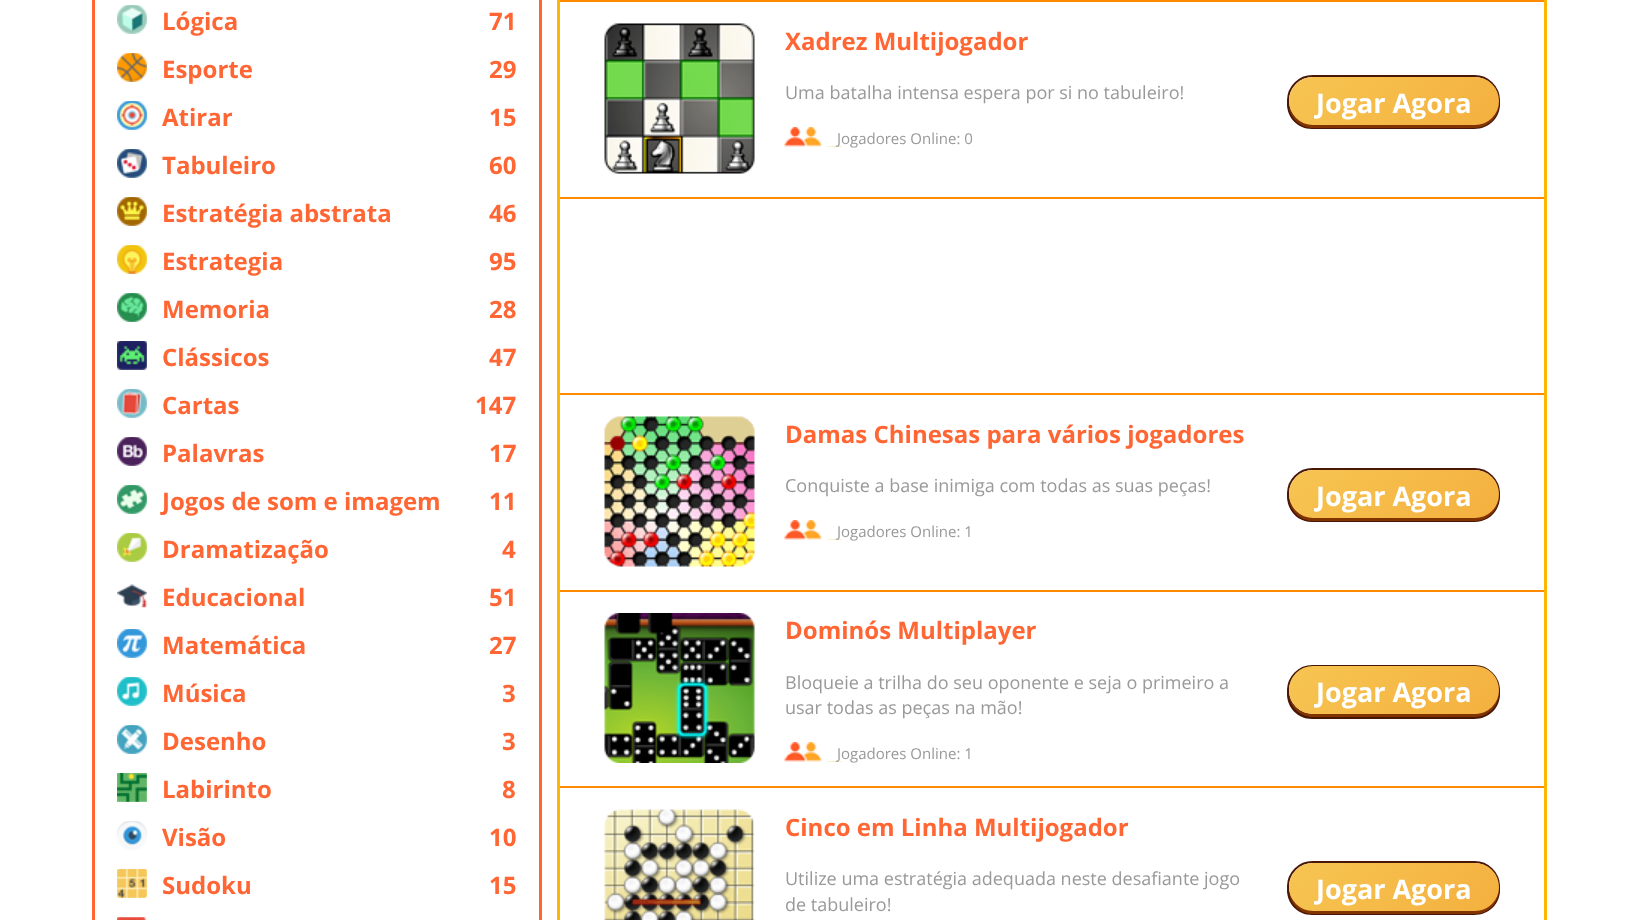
<svg xmlns="http://www.w3.org/2000/svg" xmlns:xlink="http://www.w3.org/1999/xlink" width="1638" height="920" viewBox="0 0 1638 920">
<style>
.cls-1{font:bold 24px Open Sans;fill:#ff6633}
.cls-2{font:18px Open Sans;fill:#999999}
.cls-3{font:bold 27px Open Sans;fill:#ffffff}
.cls-4{font:15px Open Sans;fill:#999999}
</style>
<defs>
<linearGradient id="g1" gradientUnits="userSpaceOnUse" x1="1329" y1="36" x2="1458" y2="165"><stop offset="0" stop-color="#f7c552"/><stop offset="1" stop-color="#f4b03f"/></linearGradient>
<linearGradient id="g2" gradientUnits="userSpaceOnUse" x1="1329" y1="429" x2="1458" y2="558"><stop offset="0" stop-color="#f7c552"/><stop offset="1" stop-color="#f4b03f"/></linearGradient>
<linearGradient id="g3" gradientUnits="userSpaceOnUse" x1="1329" y1="626" x2="1458" y2="755"><stop offset="0" stop-color="#f7c552"/><stop offset="1" stop-color="#f4b03f"/></linearGradient>
<linearGradient id="g4" gradientUnits="userSpaceOnUse" x1="1329" y1="822" x2="1458" y2="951"><stop offset="0" stop-color="#f7c552"/><stop offset="1" stop-color="#f4b03f"/></linearGradient>
</defs>
<rect width="100%" height="100%" fill="#ffffff"/>
<rect fill="none" stroke="#ff6633" stroke-width="3" x="93.5" y="-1.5" width="447" height="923"/>
<image xlink:href="image0.png" x="117" y="5" width="30" height="29"/>
<image xlink:href="image1.png" x="117" y="53" width="30" height="29"/>
<image xlink:href="image2.png" x="117" y="101" width="30" height="29"/>
<image xlink:href="image3.png" x="117" y="149" width="30" height="29"/>
<image xlink:href="image4.png" x="117" y="197" width="30" height="29"/>
<image xlink:href="image5.png" x="117" y="245" width="30" height="29"/>
<image xlink:href="image6.png" x="117" y="293" width="30" height="29"/>
<image xlink:href="image7.png" x="117" y="341" width="30" height="29"/>
<image xlink:href="image8.png" x="117" y="389" width="30" height="29"/>
<image xlink:href="image9.png" x="117" y="437" width="30" height="29"/>
<image xlink:href="image10.png" x="117" y="485" width="30" height="29"/>
<image xlink:href="image11.png" x="117" y="533" width="30" height="29"/>
<image xlink:href="image12.png" x="117" y="584" width="30" height="24"/>
<image xlink:href="image13.png" x="117" y="629" width="30" height="29"/>
<image xlink:href="image14.png" x="117" y="677" width="30" height="29"/>
<image xlink:href="image15.png" x="117" y="725" width="30" height="29"/>
<image xlink:href="image16.png" x="117" y="773" width="30" height="29"/>
<image xlink:href="image17.png" x="117" y="821" width="30" height="29"/>
<image xlink:href="image18.png" x="117" y="869" width="30" height="29"/>
<image xlink:href="image19.png" x="117" y="917" width="30" height="3"/>
<rect fill="none" stroke="#ffb600" stroke-width="3" x="558.5" y="-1.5" width="987" height="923"/>
<rect fill="#ff8a00" x="560" y="0" width="984" height="2"/>
<image xlink:href="image20.png" x="604" y="23" width="151" height="151"/>
<path fill="#491708" d="M1291 90C1289 94 1287 98 1287 104C1287 118 1298 129 1312 129H1474C1489 129 1500 118 1500 104C1500 98 1498 94 1496 90C1498 93 1498 97 1498 100C1498 114 1488 124 1474 124H1312C1299 124 1288 114 1288 100C1288 97 1289 93 1291 90Z"/>
<rect fill="none" stroke="#491708" stroke-width="2" x="1288" y="76" width="211" height="49" rx="24.5"/>
<path fill="#813400" d="M1289 106C1290 118 1300 128 1313 128H1475C1488 128 1499 117 1499 104L1498 99V100C1498 114 1488 124 1474 124H1312C1301 124 1291 116 1289 106Z"/>
<rect fill="url(#g1)" x="1289" y="77" width="210" height="48" rx="24"/>
<image xlink:href="image21.png" x="784" y="127" width="59" height="20"/>
<rect fill="#ff8a00" x="560" y="197" width="984" height="2"/>
<rect fill="#ff8a00" x="560" y="393" width="984" height="2"/>
<image xlink:href="image22.png" x="604" y="416" width="151" height="151"/>
<path fill="#491708" d="M1291 483C1289 487 1287 491 1287 496C1287 511 1298 522 1312 522H1474C1489 522 1500 511 1500 496C1500 491 1498 487 1496 483C1498 486 1498 490 1498 494C1498 507 1488 518 1474 518H1312C1299 518 1288 507 1288 494C1288 490 1289 486 1291 483Z"/>
<rect fill="none" stroke="#491708" stroke-width="2" x="1288" y="469" width="211" height="49" rx="24.5"/>
<path fill="#813400" d="M1289 499C1290 511 1300 521 1313 521H1475C1488 521 1499 510 1499 497L1498 492V494C1498 507 1488 518 1474 518H1312C1301 518 1291 509 1289 499Z"/>
<rect fill="url(#g2)" x="1289" y="470" width="210" height="48" rx="24"/>
<image xlink:href="image21.png" x="784" y="520" width="59" height="20"/>
<rect fill="#ff8a00" x="560" y="590" width="984" height="2"/>
<image xlink:href="image23.png" x="604" y="613" width="151" height="150"/>
<path fill="#491708" d="M1290 681C1288 685 1287 689 1287 694C1287 708 1298 719 1312 719H1474C1489 719 1500 708 1500 694C1500 689 1499 685 1497 681C1498 684 1498 687 1498 690C1498 703 1488 714 1474 714H1312C1299 714 1288 703 1288 690C1288 687 1289 684 1290 681Z"/>
<rect fill="none" stroke="#491708" stroke-width="2" x="1288" y="666" width="211" height="49" rx="24.5"/>
<path fill="#813400" d="M1289 695C1290 708 1301 717 1313 717H1475C1488 717 1499 706 1499 693L1498 688V690C1498 703 1488 714 1474 714H1312C1301 714 1292 706 1289 695Z"/>
<rect fill="url(#g3)" x="1289" y="666" width="210" height="48" rx="24"/>
<image xlink:href="image21.png" x="784" y="742" width="59" height="20"/>
<rect fill="#ff8a00" x="560" y="786" width="984" height="2"/>
<image xlink:href="image24.png" x="604" y="809" width="151" height="111"/>
<path fill="#491708" d="M1291 876C1289 880 1287 884 1287 890C1287 904 1298 915 1312 915H1474C1489 915 1500 904 1500 890C1500 884 1498 880 1496 876C1498 879 1498 883 1498 886C1498 900 1488 910 1474 910H1312C1299 910 1288 900 1288 886C1288 883 1289 879 1291 876Z"/>
<rect fill="none" stroke="#491708" stroke-width="2" x="1288" y="862" width="211" height="49" rx="24.5"/>
<path fill="#813400" d="M1289 892C1290 904 1300 914 1313 914H1475C1488 914 1499 903 1499 890L1498 885V886C1498 900 1488 910 1474 910H1312C1301 910 1291 902 1289 892Z"/>
<rect fill="url(#g4)" x="1289" y="863" width="210" height="48" rx="24"/>
<text class="cls-1" x="162" y="30">Lógica</text>
<text class="cls-1" x="489" y="30">71</text>
<text class="cls-1" x="162" y="78">Esporte</text>
<text class="cls-1" x="489" y="78">29</text>
<text class="cls-1" x="162" y="126">Atirar</text>
<text class="cls-1" x="489" y="126">15</text>
<text class="cls-1" x="162" y="174">Tabuleiro</text>
<text class="cls-1" x="489" y="174">60</text>
<text class="cls-1" x="162" y="222">Estratégia abstrata</text>
<text class="cls-1" x="489" y="222">46</text>
<text class="cls-1" x="162" y="270">Estrategia</text>
<text class="cls-1" x="489" y="270">95</text>
<text class="cls-1" x="162" y="318">Memoria</text>
<text class="cls-1" x="489" y="318">28</text>
<text class="cls-1" x="162" y="366">Clássicos</text>
<text class="cls-1" x="489" y="366">47</text>
<text class="cls-1" x="162" y="414">Cartas</text>
<text class="cls-1" x="475" y="414">147</text>
<text class="cls-1" x="162" y="462">Palavras</text>
<text class="cls-1" x="489" y="462">17</text>
<text class="cls-1" x="162" y="510">Jogos de som e imagem</text>
<text class="cls-1" x="489" y="510">11</text>
<text class="cls-1" x="162" y="558">Dramatização</text>
<text class="cls-1" x="502" y="558">4</text>
<text class="cls-1" x="162" y="606">Educacional</text>
<text class="cls-1" x="489" y="606">51</text>
<text class="cls-1" x="162" y="654">Matemática</text>
<text class="cls-1" x="489" y="654">27</text>
<text class="cls-1" x="162" y="702">Música</text>
<text class="cls-1" x="502" y="702">3</text>
<text class="cls-1" x="162" y="750">Desenho</text>
<text class="cls-1" x="502" y="750">3</text>
<text class="cls-1" x="162" y="798">Labirinto</text>
<text class="cls-1" x="502" y="798">8</text>
<text class="cls-1" x="162" y="846">Visão</text>
<text class="cls-1" x="489" y="846">10</text>
<text class="cls-1" x="162" y="894">Sudoku</text>
<text class="cls-1" x="489" y="894">15</text>
<text class="cls-1" x="785" y="50">Xadrez Multijogador</text>
<text class="cls-2" x="785" y="99">Uma batalha intensa espera por si no tabuleiro!</text>
<text class="cls-3" x="1316" y="113">Jogar Agora</text>
<text class="cls-4" x="837" y="144">Jogadores Online: 0</text>
<text class="cls-1" x="785" y="443">Damas Chinesas para vários jogadores</text>
<text class="cls-2" x="785" y="492">Conquiste a base inimiga com todas as suas peças!</text>
<text class="cls-3" x="1316" y="506">Jogar Agora</text>
<text class="cls-4" x="837" y="537">Jogadores Online: 1</text>
<text class="cls-1" x="785" y="639">Dominós Multiplayer</text>
<text class="cls-2"><tspan x="785" y="689">Bloqueie a trilha do seu oponente e seja o primeiro a</tspan><tspan x="785" y="714">usar todas as peças na mão!</tspan></text>
<text class="cls-3" x="1316" y="702">Jogar Agora</text>
<text class="cls-4" x="837" y="759">Jogadores Online: 1</text>
<text class="cls-1" x="785" y="836">Cinco em Linha Multijogador</text>
<text class="cls-2"><tspan x="785" y="885">Utilize uma estratégia adequada neste desafiante jogo</tspan><tspan x="785" y="911">de tabuleiro!</tspan></text>
<text class="cls-3" x="1316" y="899">Jogar Agora</text>
</svg>
